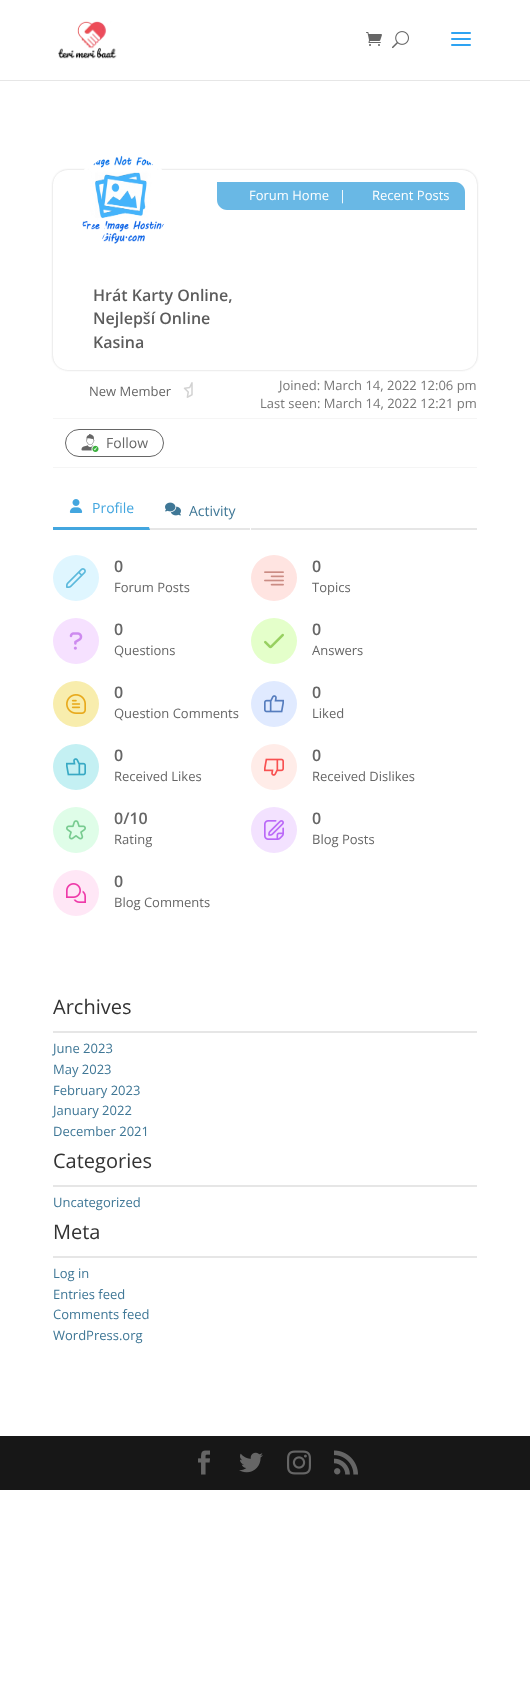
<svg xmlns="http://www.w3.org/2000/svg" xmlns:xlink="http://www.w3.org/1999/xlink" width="530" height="1700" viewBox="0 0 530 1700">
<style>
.cls-1{font:13px Open Sans;fill:#ffffff}
.cls-2{font:600 16px Open Sans;fill:#5c5c5c}
.cls-3{font:13px Open Sans;fill:#666666}
.cls-4{font:13px Open Sans;fill:#777777}
.cls-5{font:14px Open Sans;fill:#666666}
.cls-6{font:14px Open Sans;fill:#43a6df}
.cls-7{font:14px Open Sans;fill:#3f7796}
.cls-8{font:600 16px Open Sans;fill:#666666}
.cls-9{font:20px Open Sans;fill:#333333}
.cls-10{font:13px Open Sans;fill:#3f7796}
</style>
<defs>
<clipPath id="clip1"><path d="M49 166H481V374H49ZM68 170H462C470.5 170 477 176.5 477 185V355C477 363.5 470.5 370 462 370H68C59.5 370 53 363.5 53 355V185C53 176.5 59.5 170 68 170Z" clip-rule="evenodd"/></clipPath>
</defs>
<rect width="100%" height="100%" fill="#ffffff"/>
<rect fill="#e6e6e6" x="0" y="80" width="530" height="1"/>
<image xlink:href="image0.png" x="58" y="21" width="59" height="38"/>
<image xlink:href="image1.png" x="366" y="32" width="16" height="14"/>
<image xlink:href="image2.png" x="392" y="31" width="17" height="18"/>
<image xlink:href="image3.png" x="451" y="32" width="20" height="14"/>
<g clip-path="url(#clip1)">
<rect fill="#cccccc" filter="blur(1px)" x="53" y="170" width="424" height="200" rx="15"/>
</g>
<path fill="#69b8e5" d="M217 182H455C460.5 182 465 186.5 465 192V210H227C221.5 210 217 205.5 217 200Z"/>
<circle fill="none" stroke="#ffffff" stroke-width="3" cx="123" cy="201" r="48.5"/>
<image xlink:href="image4.png" x="82" y="155" width="83" height="89"/>
<path fill="none" stroke="#ffffff" stroke-width="2" d="M98 221C108.5 221 108.5 242 98 242C87.5 242 87.5 221 98 221Z"/>
<image xlink:href="image5.png" x="183" y="382" width="10" height="16"/>
<rect fill="#f5f5f5" x="53" y="418" width="424" height="1"/>
<rect fill="#f5f5f5" x="53" y="467" width="424" height="1"/>
<rect fill="none" stroke="#666666" x="65.5" y="429.5" width="98" height="27" rx="13.5"/>
<image xlink:href="image6.png" x="81" y="434" width="18" height="18"/>
<rect fill="#e6e6e6" x="149" y="528" width="328" height="2"/>
<path fill="#ffffff" d="M150 488V530L149 527V488Z"/>
<path fill="#43a6df" d="M150 530H53V527H149Z"/>
<image xlink:href="image7.png" x="69" y="499" width="14" height="14"/>
<rect fill="#ffffff" x="250" y="528" width="1" height="2"/>
<image xlink:href="image8.png" x="165" y="502" width="16" height="14"/>
<circle fill="#dff6ff" cx="76" cy="578" r="23"/>
<image xlink:href="image9.png" x="66" y="568" width="20" height="20"/>
<circle fill="#ffe4e1" cx="274" cy="578" r="23"/>
<image xlink:href="image10.png" x="264" y="571" width="20" height="15"/>
<circle fill="#f6e1ff" cx="76" cy="641" r="23"/>
<image xlink:href="image11.png" x="69" y="632" width="14" height="18"/>
<circle fill="#e4ffca" cx="274" cy="641" r="23"/>
<image xlink:href="image12.png" x="264" y="633" width="20" height="16"/>
<circle fill="#f8edad" cx="76" cy="704" r="23"/>
<image xlink:href="image13.png" x="66" y="694" width="20" height="20"/>
<circle fill="#e0eaff" cx="274" cy="704" r="23"/>
<image xlink:href="image14.png" x="264" y="695" width="20" height="18"/>
<circle fill="#c4f0f3" cx="76" cy="767" r="23"/>
<image xlink:href="image15.png" x="66" y="758" width="20" height="18"/>
<circle fill="#ffece8" cx="274" cy="767" r="23"/>
<image xlink:href="image16.png" x="264" y="758" width="20" height="18"/>
<circle fill="#dffde8" cx="76" cy="830" r="23"/>
<image xlink:href="image17.png" x="66" y="820" width="20" height="20"/>
<circle fill="#f3e2ff" cx="274" cy="830" r="23"/>
<image xlink:href="image18.png" x="264" y="820" width="20" height="20"/>
<circle fill="#ffe7f6" cx="76" cy="893" r="23"/>
<image xlink:href="image19.png" x="66" y="883" width="20" height="20"/>
<rect fill="#e6e6e6" x="53" y="1031" width="424" height="2"/>
<rect fill="#e6e6e6" x="53" y="1185" width="424" height="2"/>
<rect fill="#e6e6e6" x="53" y="1256" width="424" height="2"/>
<rect fill="#171717" x="0" y="1436" width="530" height="54"/>
<image xlink:href="image20.png" x="198" y="1450" width="12" height="25"/>
<image xlink:href="image21.png" x="239" y="1452" width="24" height="21"/>
<image xlink:href="image22.png" x="287" y="1450" width="24" height="25"/>
<image xlink:href="image23.png" x="334" y="1450" width="24" height="25"/>
<text class="cls-1" x="249" y="200">Forum Home</text>
<text class="cls-1" x="339" y="200">|</text>
<text class="cls-1" x="372" y="200">Recent Posts</text>
<text class="cls-2"><tspan x="93" y="301">Hrát Karty Online,</tspan><tspan x="93" y="324">Nejlepší Online</tspan><tspan x="93" y="348">Kasina</tspan></text>
<text class="cls-3" x="89" y="396">New Member</text>
<text class="cls-4" x="279" y="390">Joined: March 14, 2022 12:06 pm</text>
<text class="cls-4" x="260" y="408">Last seen: March 14, 2022 12:21 pm</text>
<text class="cls-5" x="106" y="448">Follow</text>
<text class="cls-6" x="92" y="513">Profile</text>
<text class="cls-7" x="189" y="516">Activity</text>
<text class="cls-8" x="114" y="572">0</text>
<text class="cls-3" x="114" y="592">Forum Posts</text>
<text class="cls-8" x="312" y="572">0</text>
<text class="cls-3" x="312" y="592">Topics</text>
<text class="cls-8" x="114" y="635">0</text>
<text class="cls-3" x="114" y="655">Questions</text>
<text class="cls-8" x="312" y="635">0</text>
<text class="cls-3" x="312" y="655">Answers</text>
<text class="cls-8" x="114" y="698">0</text>
<text class="cls-3" x="114" y="718">Question Comments</text>
<text class="cls-8" x="312" y="698">0</text>
<text class="cls-3" x="312" y="718">Liked</text>
<text class="cls-8" x="114" y="761">0</text>
<text class="cls-3" x="114" y="781">Received Likes</text>
<text class="cls-8" x="312" y="761">0</text>
<text class="cls-3" x="312" y="781">Received Dislikes</text>
<text class="cls-8" x="114" y="824">0/10</text>
<text class="cls-3" x="114" y="844">Rating</text>
<text class="cls-8" x="312" y="824">0</text>
<text class="cls-3" x="312" y="844">Blog Posts</text>
<text class="cls-8" x="114" y="887">0</text>
<text class="cls-3" x="114" y="907">Blog Comments</text>
<text class="cls-9" x="53" y="1014">Archives</text>
<text class="cls-10"><tspan x="53" y="1053">June 2023</tspan><tspan x="53" y="1074">May 2023</tspan><tspan x="53" y="1095">February 2023</tspan><tspan x="53" y="1115">January 2022</tspan><tspan x="53" y="1136">December 2021</tspan></text>
<text class="cls-9" x="53" y="1168">Categories</text>
<text class="cls-10" x="53" y="1207">Uncategorized</text>
<text class="cls-9" x="53" y="1239">Meta</text>
<text class="cls-10"><tspan x="53" y="1278">Log in</tspan><tspan x="53" y="1299">Entries feed</tspan><tspan x="53" y="1319">Comments feed</tspan><tspan x="53" y="1340">WordPress.org</tspan></text>
</svg>
